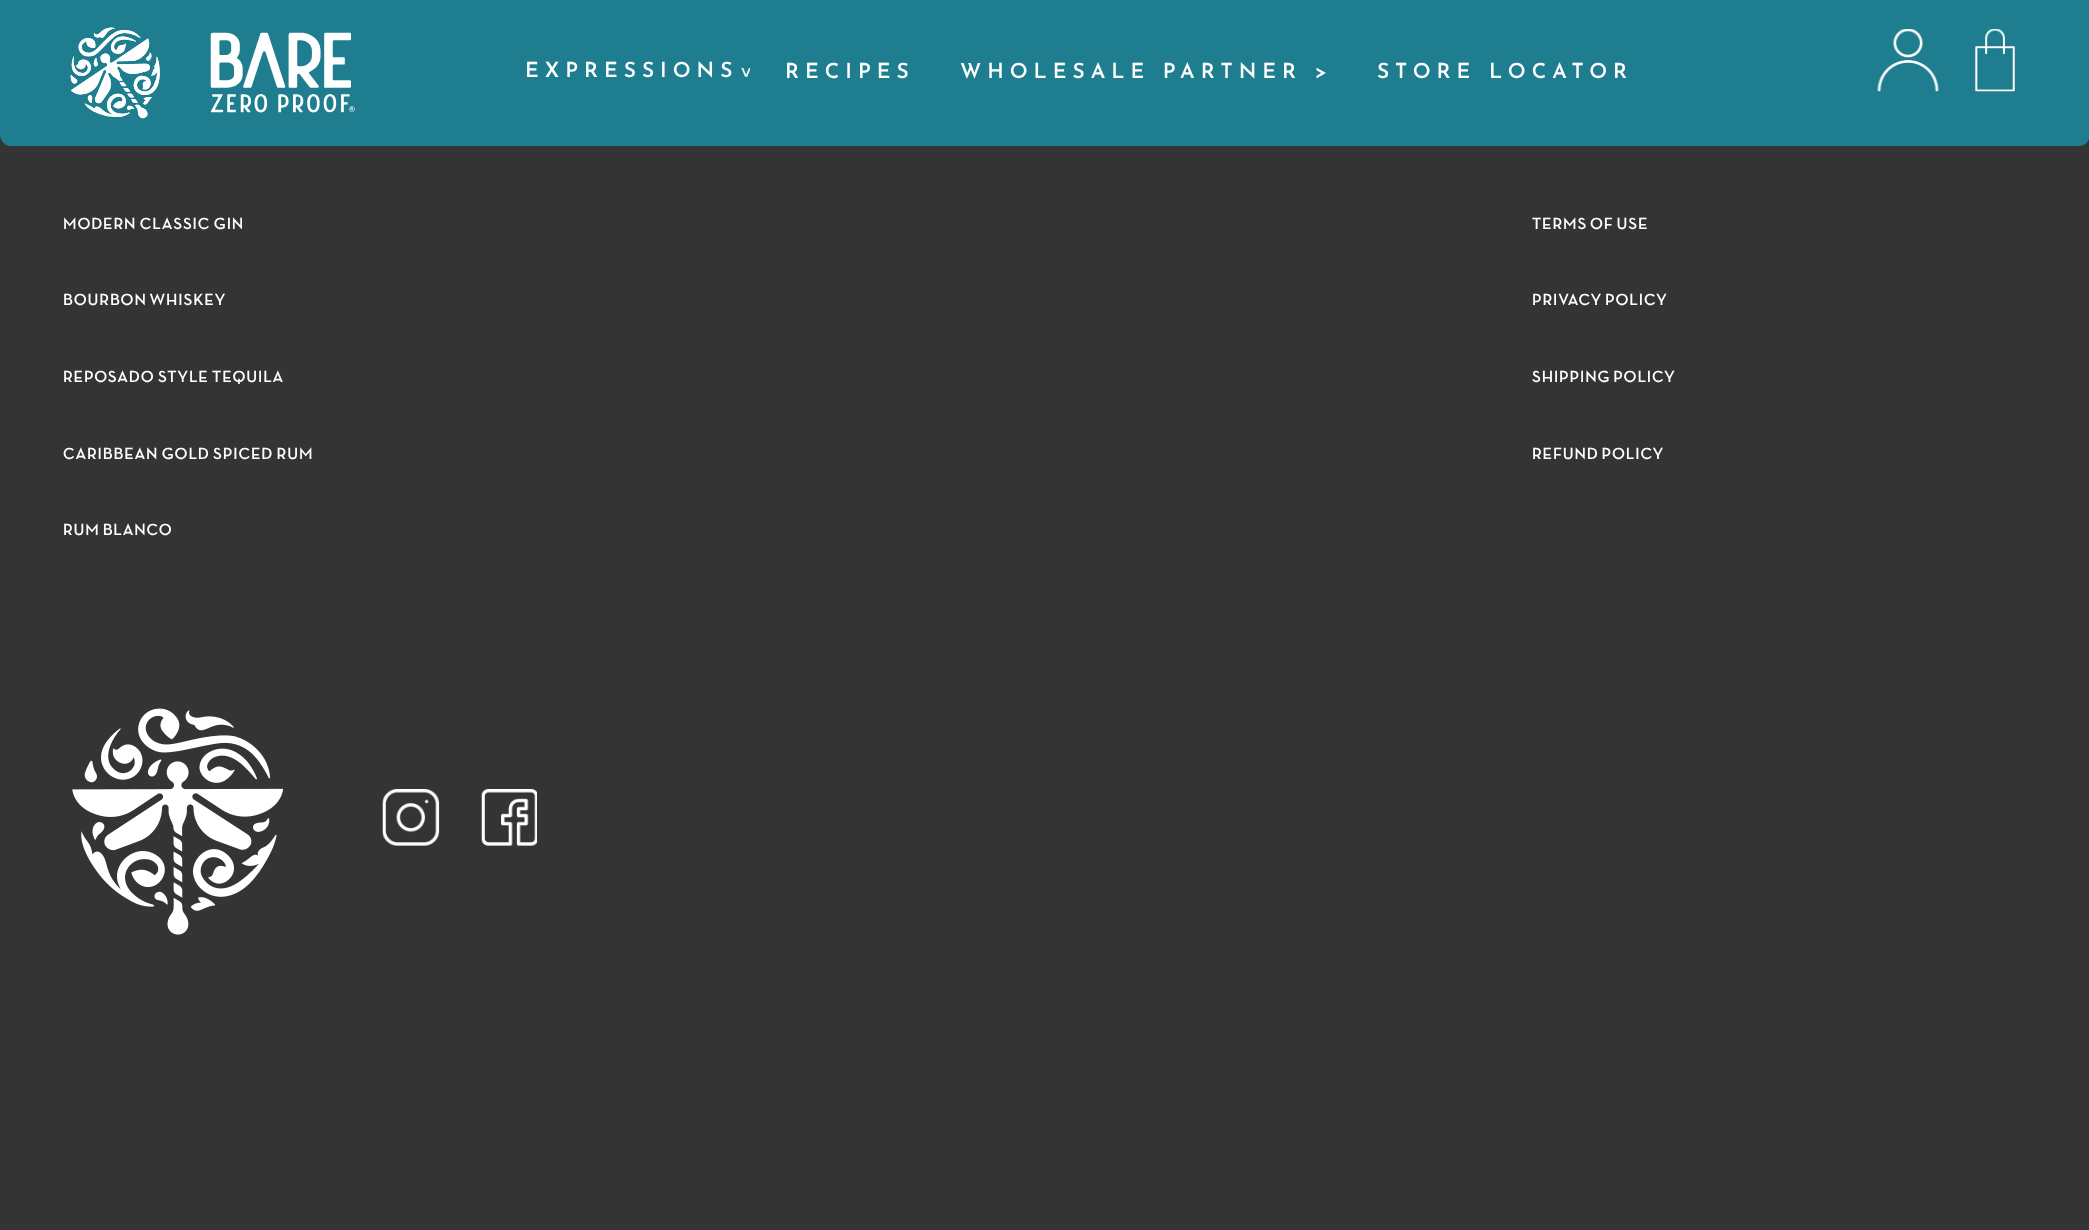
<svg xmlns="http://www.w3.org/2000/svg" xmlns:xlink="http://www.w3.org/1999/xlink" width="2089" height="1230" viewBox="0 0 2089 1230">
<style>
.cls-1{font:600 20.9px Josefin Sans;letter-spacing:6px;fill:#ffffff}
.cls-2{font:bold 16.5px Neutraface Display;letter-spacing:0.9px;fill:#ffffff}
</style>
<rect width="100%" height="100%" fill="#343434"/>
<path fill="#1e7e8f" d="M0 0H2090V135C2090 141 2085 146 2079 146H11C5 146 0 141 0 135Z"/>
<image xlink:href="image0.png" x="70" y="27" width="285" height="92"/>
<image xlink:href="image1.png" x="741" y="68" width="9" height="9"/>
<image xlink:href="image2.png" x="1877" y="29" width="62" height="63"/>
<image xlink:href="image3.png" x="1975" y="29" width="40" height="63"/>
<image xlink:href="image4.png" x="72" y="708" width="212" height="227"/>
<image xlink:href="image5.png" x="382" y="789" width="58" height="57"/>
<image xlink:href="image6.png" x="481" y="789" width="56" height="57"/>
<text class="cls-1" x="525" y="77">EXPRESSIONS</text>
<text class="cls-1" x="785" y="78">RECIPES</text>
<text class="cls-1" x="960" y="78">WHOLESALE PARTNER &gt;</text>
<text class="cls-1" x="1377" y="78">STORE LOCATOR</text>
<text class="cls-2" x="63" y="229" word-spacing="-0.5">MODERN CLASSIC GIN</text>
<text class="cls-2" x="63" y="305" word-spacing="-1">BOURBON WHISKEY</text>
<text class="cls-2" x="63" y="382" word-spacing="-0.5">REPOSADO STYLE TEQUILA</text>
<text class="cls-2" x="63" y="459" word-spacing="-0.5">CARIBBEAN GOLD SPICED RUM</text>
<text class="cls-2" x="63" y="535" word-spacing="-1">RUM BLANCO</text>
<text class="cls-2" x="1532" y="229" word-spacing="-1">TERMS OF USE</text>
<text class="cls-2" x="1532" y="305" word-spacing="-1">PRIVACY POLICY</text>
<text class="cls-2" x="1532" y="382" word-spacing="-1">SHIPPING POLICY</text>
<text class="cls-2" x="1532" y="459" word-spacing="-1">REFUND POLICY</text>
</svg>
